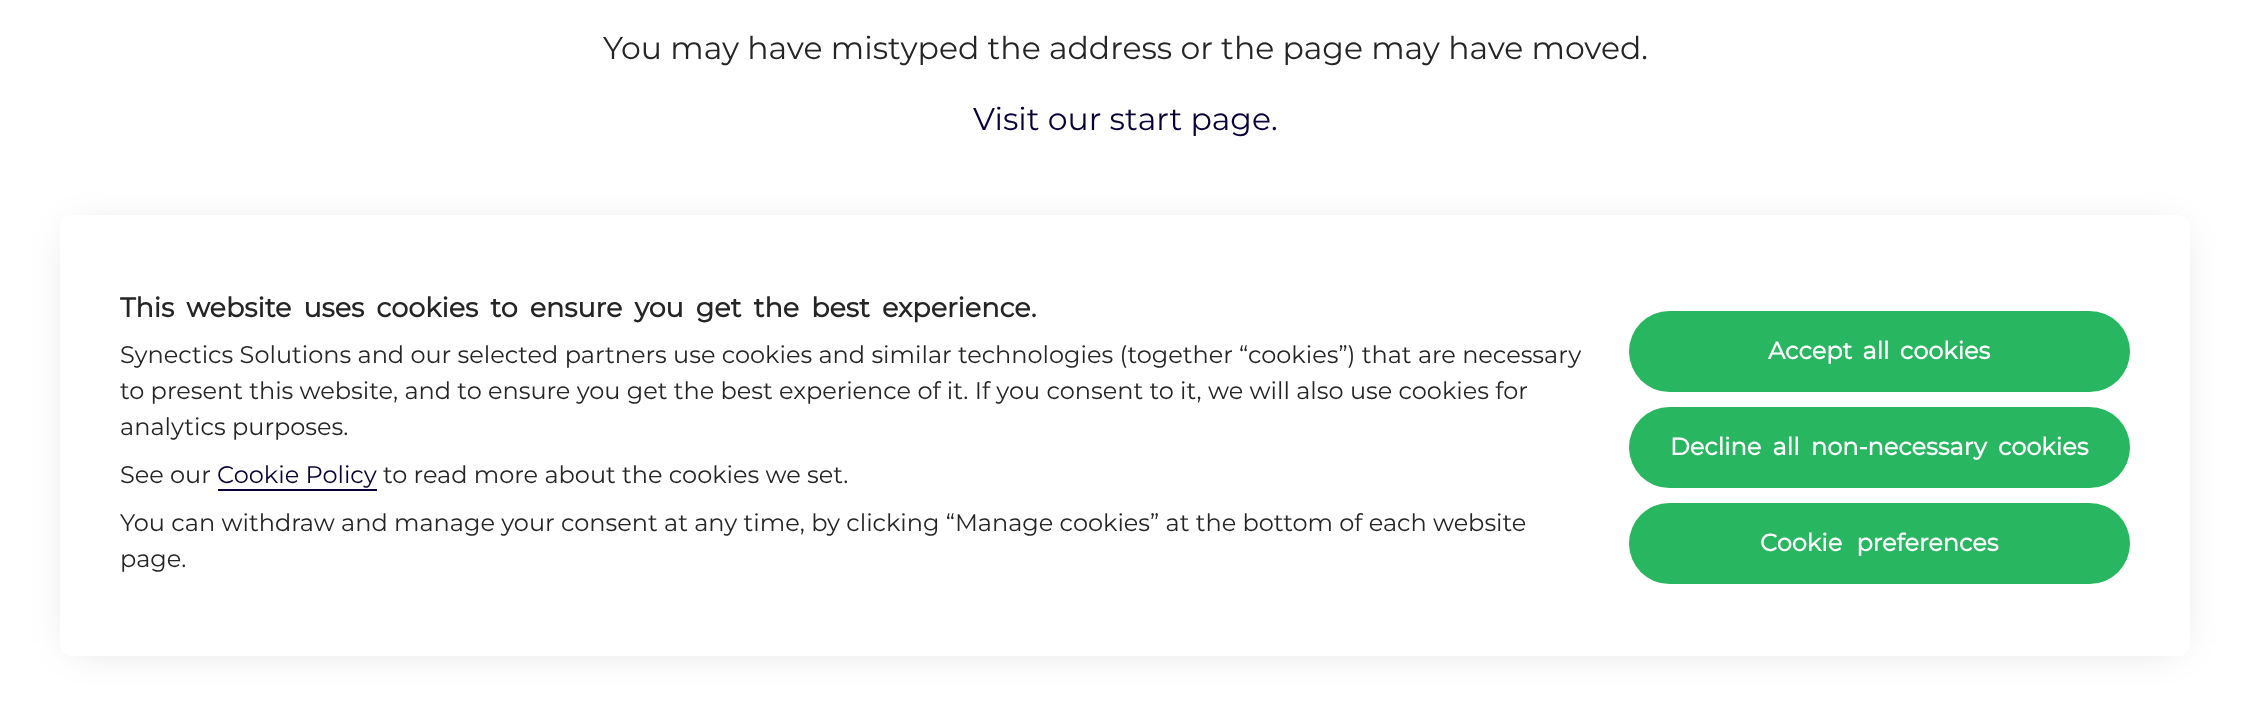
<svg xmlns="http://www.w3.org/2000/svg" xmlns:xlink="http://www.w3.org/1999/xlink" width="2249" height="715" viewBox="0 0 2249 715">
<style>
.cls-1{font:31.5px Montserrat;fill:#252525}
.cls-2{font:31.5px Montserrat;fill:#0a0037}
.cls-3{font:bold 27px Montserrat;fill:#252525}
.cls-4{font:24px Montserrat;fill:#252525}
.cls-5{font:24px Montserrat;fill:#0a0037}
.cls-6{font:bold 24px Montserrat;fill:#ffffff}
</style>
<rect width="100%" height="100%" fill="#ffffff"/>
<rect fill="#000000" fill-opacity="0.18" filter="blur(20px)" x="75" y="233" width="2100" height="411"/>
<rect fill="#ffffff" x="60" y="215" width="2130" height="441" rx="12"/>
<rect fill="#0a0037" x="218" y="489" width="159" height="2"/>
<rect fill="#28b660" x="1629" y="311" width="501" height="81" rx="40.5"/>
<rect fill="#28b660" x="1629" y="407" width="501" height="81" rx="40.5"/>
<rect fill="#28b660" x="1629" y="503" width="501" height="81" rx="40.5"/>
<text class="cls-1" x="603" y="59">You may have mistyped the address or the page may have moved.</text>
<text class="cls-2" x="973" y="130">Visit our start page.</text>
<text class="cls-3" x="120" y="317" word-spacing="5">This website uses cookies to ensure you get the best experience.</text>
<text class="cls-4"><tspan x="120" y="363">Synectics Solutions and our selected partners use cookies and similar technologies (together “cookies”) that are necessary</tspan><tspan x="120" y="399">to present this website, and to ensure you get the best experience of it. If you consent to it, we will also use cookies for</tspan><tspan x="120" y="435">analytics purposes.</tspan></text>
<text class="cls-4" x="120" y="483">See our</text>
<text class="cls-5" x="217" y="483">Cookie Policy</text>
<text class="cls-4" x="383" y="483">to read more about the cookies we set.</text>
<text class="cls-4"><tspan x="120" y="531">You can withdraw and manage your consent at any time, by clicking “Manage cookies” at the bottom of each website</tspan><tspan x="120" y="567">page.</tspan></text>
<text class="cls-6" x="1768" y="359" word-spacing="4">Accept all cookies</text>
<text class="cls-6" x="1670" y="455" word-spacing="5">Decline all non-necessary cookies</text>
<text class="cls-6" x="1760" y="551" word-spacing="8">Cookie preferences</text>
</svg>
